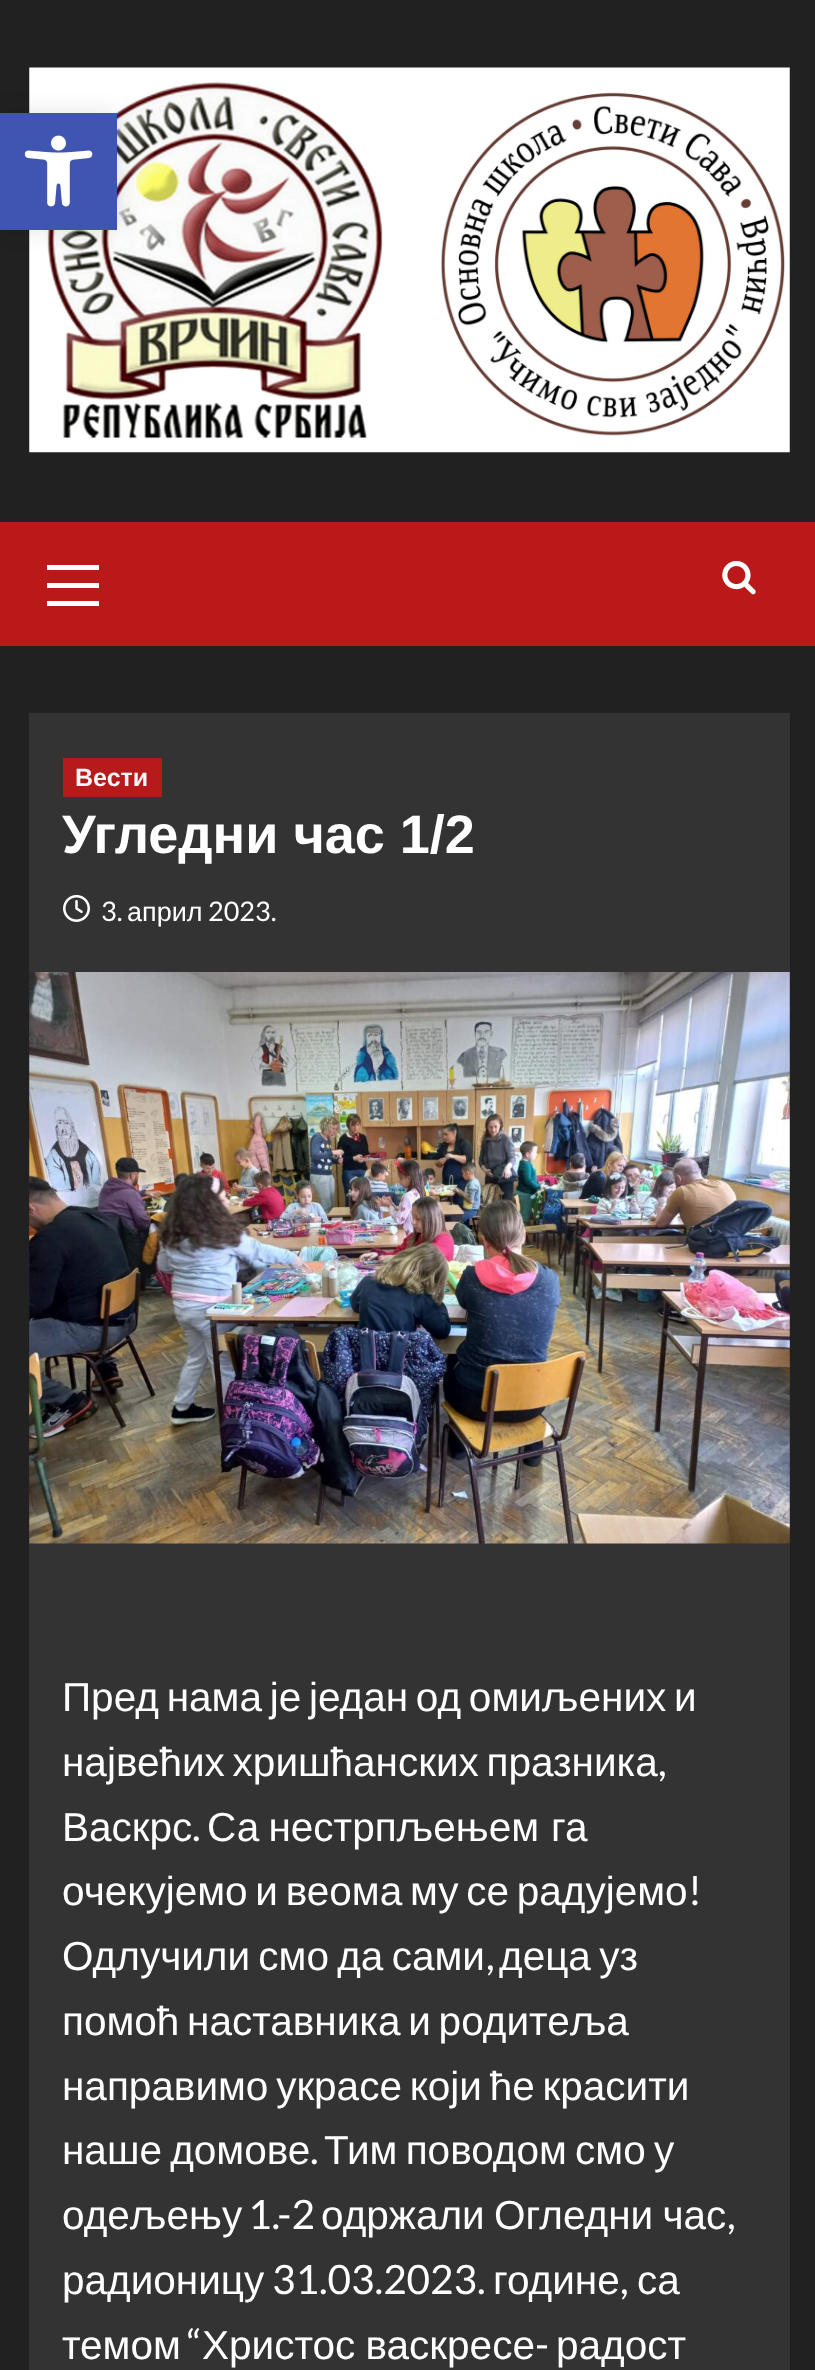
<svg xmlns="http://www.w3.org/2000/svg" xmlns:xlink="http://www.w3.org/1999/xlink" width="815" height="2370" viewBox="0 0 815 2370">
<style>
.cls-1{font:bold 25px Liberation Sans;fill:#f7f7f7}
.cls-2{font:bold 54px Liberation Sans;fill:#ffffff}
.cls-3{font:27px Lato;fill:#ffffff}
.cls-4{font:27px Liberation Sans;fill:#ffffff}
.cls-5{font:40.5px Liberation Sans;fill:#ffffff}
.cls-6{font:40.5px Lato;fill:#ffffff}
</style>
<rect width="100%" height="100%" fill="#212121"/>
<image xlink:href="image1.png" x="29" y="67" width="761" height="386"/>
<rect fill="#000000" fill-opacity="0.1" filter="blur(11px)" x="0" y="113" width="117" height="117"/>
<rect fill="#4054b2" x="0" y="113" width="117" height="117"/>
<image xlink:href="image0.png" x="24" y="135" width="69" height="72"/>
<rect fill="#bb1919" x="0" y="522" width="815" height="124"/>
<rect fill="#ffffff" x="47" y="583" width="52" height="5"/>
<rect fill="#ffffff" x="47" y="565" width="52" height="5"/>
<rect fill="#ffffff" x="47" y="601" width="52" height="5"/>
<image xlink:href="image2.png" x="722" y="560" width="34" height="35"/>
<rect fill="#333333" x="29" y="713" width="761" height="1657"/>
<rect fill="#b61a1a" x="63" y="758" width="99" height="39"/>
<image xlink:href="image3.png" x="63" y="894" width="27" height="28"/>
<image xlink:href="image4.png" x="29" y="972" width="761" height="572"/>
<text class="cls-1" x="75" y="786">Вести</text>
<text class="cls-2" x="62" y="853">Угледни час 1/2</text>
<text class="cls-3" x="101" y="921">3.</text>
<text class="cls-4" x="127" y="921">април</text>
<text class="cls-3" x="208" y="921">2023.</text>
<text class="cls-5"><tspan x="62" y="1711" word-spacing="-3.5">Пред нама је један од омиљених и</tspan><tspan x="62" y="1776" word-spacing="-3.5">највећих хришћанских празника</tspan></text>
<text class="cls-6" x="658" y="1776">,</text>
<text class="cls-5" x="62" y="1841">Васкрс</text>
<text class="cls-6" x="192" y="1841">.</text>
<text class="cls-5" x="207" y="1841" word-spacing="-2">Са нестрпљењем</text>
<text class="cls-5" x="551" y="1841">га</text>
<text class="cls-5" x="62" y="1905" word-spacing="-3.5">очекујемо и веома му се радујемо</text>
<text class="cls-6" x="688" y="1905">!</text>
<text class="cls-5" x="62" y="1970" word-spacing="-3">Одлучили смо да сами</text>
<text class="cls-6" x="486" y="1970">,</text>
<text class="cls-5" x="499" y="1970" word-spacing="-3">деца уз</text>
<text class="cls-5"><tspan x="62" y="2035" word-spacing="-3.5">помоћ наставника и родитеља</tspan><tspan x="62" y="2100" word-spacing="-3.5">направимо украсе који ће красити</tspan><tspan x="62" y="2164" word-spacing="-3">наше домове</tspan></text>
<text class="cls-6" x="310" y="2164">.</text>
<text class="cls-5" x="324" y="2164" word-spacing="-3">Тим поводом смо у</text>
<text class="cls-5" x="62" y="2229">одељењу</text>
<text class="cls-6" x="248" y="2229">1.-2</text>
<text class="cls-5" x="321" y="2229" word-spacing="-2">одржали Огледни час</text>
<text class="cls-6" x="727" y="2229">,</text>
<text class="cls-5" x="62" y="2294">радионицу</text>
<text class="cls-6" x="272" y="2294">31.03.2023.</text>
<text class="cls-5" x="493" y="2294">године</text>
<text class="cls-6" x="620" y="2294">,</text>
<text class="cls-5" x="637" y="2294">са</text>
<text class="cls-5" x="62" y="2359">темом</text>
<text class="cls-6" x="187" y="2359">“</text>
<text class="cls-5" x="202" y="2359" word-spacing="-1">Христос васкресе</text>
<text class="cls-6" x="535" y="2359">-</text>
<text class="cls-5" x="556" y="2359">радост</text>
</svg>
